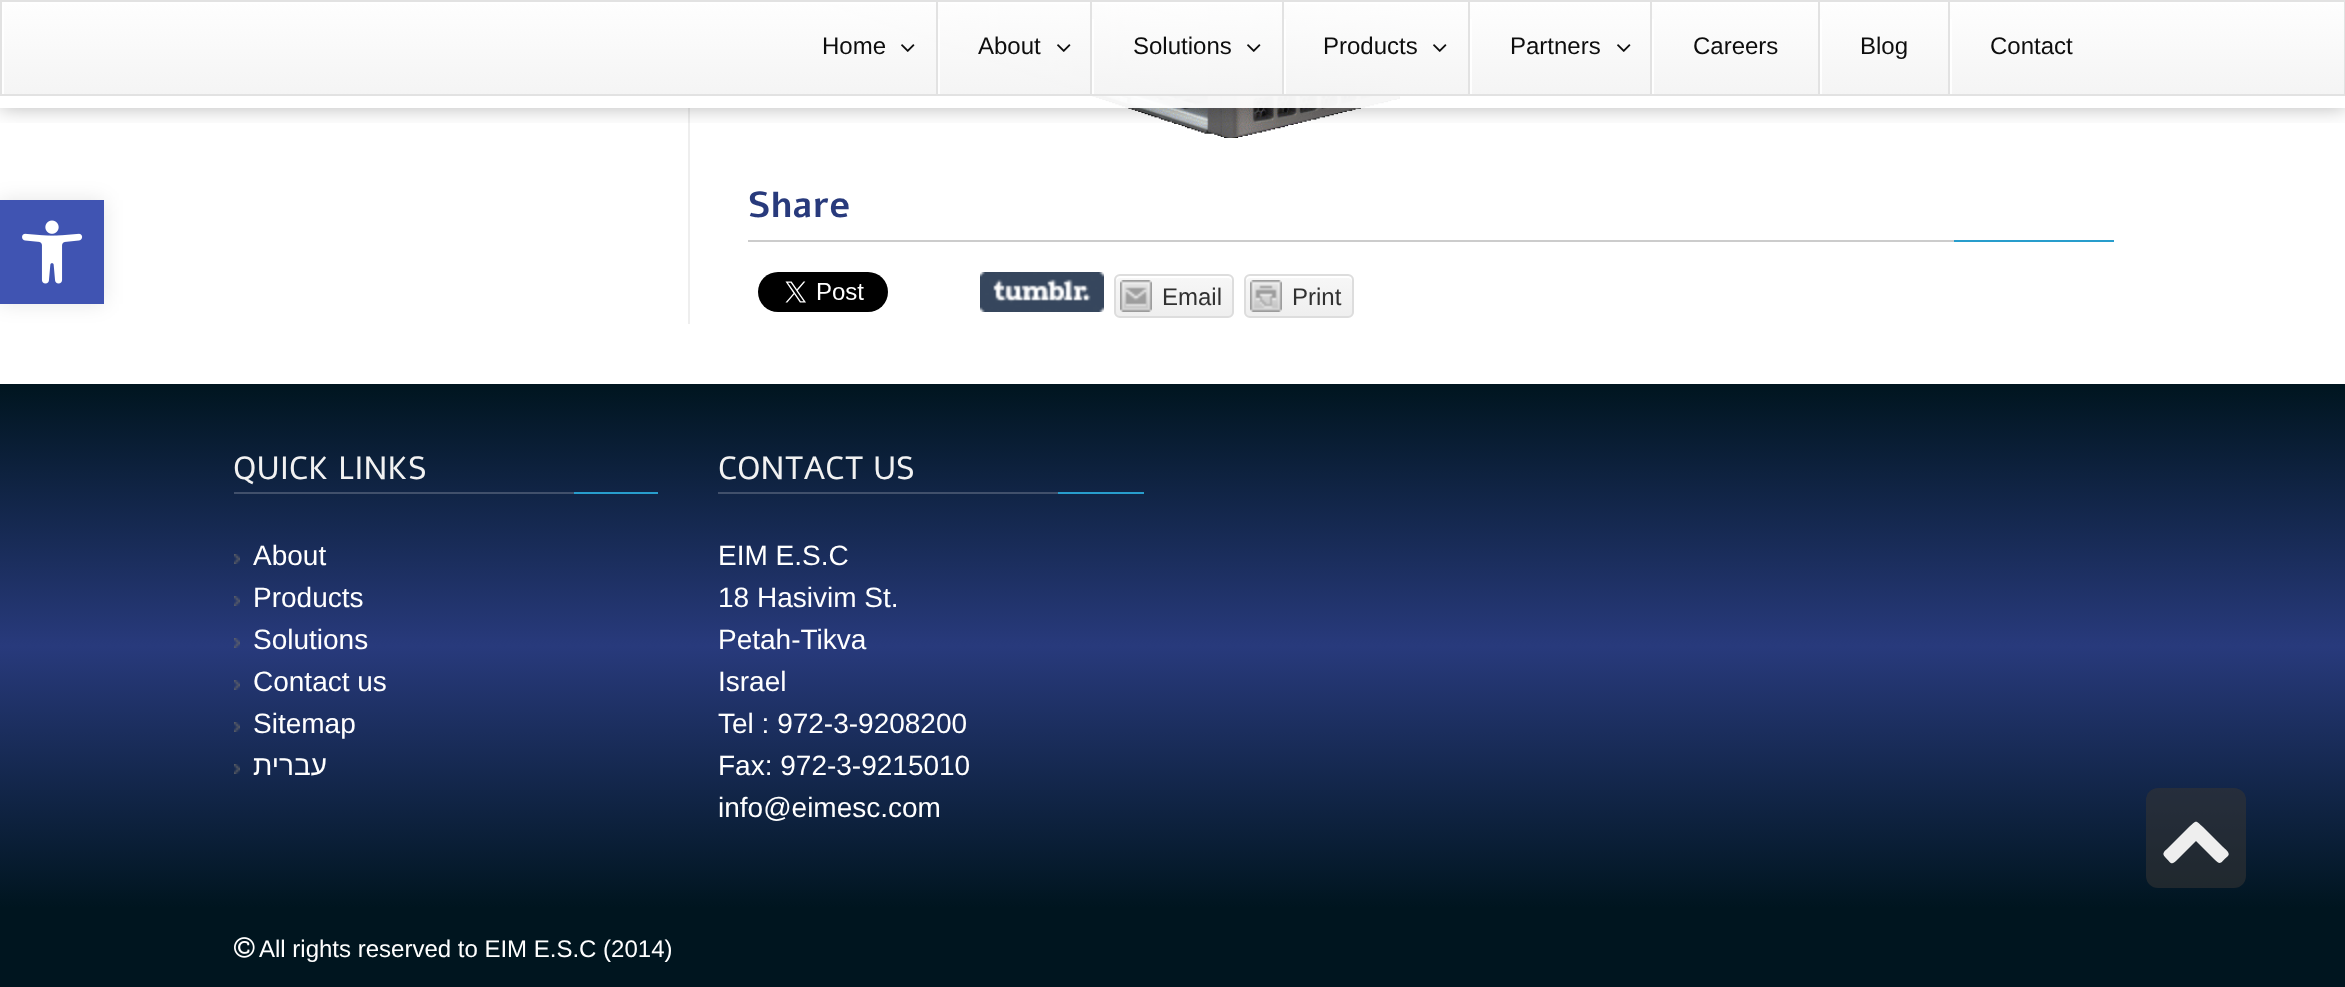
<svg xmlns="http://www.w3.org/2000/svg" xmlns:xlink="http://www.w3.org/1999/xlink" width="2345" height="987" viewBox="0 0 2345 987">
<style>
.cls-1{font:24px Liberation Sans;fill:#0d0d0d}
.cls-2{font:bold 36px Alef;fill:#283a7c}
.cls-3{font:24px Liberation Sans;fill:#313131}
.cls-4{font:32px Alef;fill:#f2f2f2}
.cls-5{font:28px Liberation Sans;fill:#ffffff}
.cls-6{font:28px Liberation Sans;direction:rtl;fill:#ffffff}
.cls-7{font:24px Liberation Sans;fill:#ffffff}
</style>
<defs>
<clipPath id="clip1"><rect x="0" y="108" width="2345" height="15"/></clipPath>
<linearGradient id="g1" gradientUnits="userSpaceOnUse" x1="1173" y1="-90" x2="1173" y2="2"><stop offset="0" stop-color="#fefefe" stop-opacity="0.95"/><stop offset="1" stop-color="#f4f4f4" stop-opacity="0.95"/></linearGradient>
<linearGradient id="g2" gradientUnits="userSpaceOnUse" x1="1173" y1="2" x2="1173" y2="94"><stop offset="0" stop-color="#fefefe" stop-opacity="0.95"/><stop offset="1" stop-color="#f4f4f4" stop-opacity="0.95"/></linearGradient>
<linearGradient id="g3" gradientUnits="userSpaceOnUse" x1="1173" y1="94" x2="1173" y2="186"><stop offset="0" stop-color="#fefefe" stop-opacity="0.95"/><stop offset="1" stop-color="#f4f4f4" stop-opacity="0.95"/></linearGradient>
<clipPath id="clip2"><rect x="2" y="2" width="2342" height="92"/></clipPath>
<clipPath id="clip3"><rect x="1114" y="274" width="120" height="44" rx="6"/></clipPath>
<linearGradient id="g4" gradientUnits="userSpaceOnUse" x1="1174" y1="276" x2="1174" y2="316"><stop offset="0" stop-color="#f7f7f7"/><stop offset="1" stop-color="#efefef"/></linearGradient>
<clipPath id="clip4"><rect x="1244" y="274" width="110" height="44" rx="6"/></clipPath>
<linearGradient id="g5" gradientUnits="userSpaceOnUse" x1="1299" y1="276" x2="1299" y2="316"><stop offset="0" stop-color="#f7f7f7"/><stop offset="1" stop-color="#efefef"/></linearGradient>
<linearGradient id="g6" gradientUnits="userSpaceOnUse" x1="1173" y1="908" x2="1173" y2="384"><stop offset="0" stop-color="#00151f"/><stop offset="0.5" stop-color="#283a7c"/><stop offset="1" stop-color="#00151f"/></linearGradient>
</defs>
<rect width="100%" height="100%" fill="#ffffff"/>
<rect fill="#000000" fill-opacity="0.1" filter="blur(10px)" x="0" y="200" width="104" height="104"/>
<rect fill="#4054b2" x="0" y="200" width="104" height="104"/>
<image xlink:href="image0.png" x="22" y="220" width="61" height="64"/>
<rect fill="#eeeeee" x="688" y="0" width="2" height="324"/>
<image xlink:href="image4.png" x="814" y="0" width="586" height="138"/>
<g clip-path="url(#clip1)">
<rect fill="#000000" fill-opacity="0.28" filter="blur(10px)" x="0" y="0" width="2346" height="108"/>
</g>
<rect fill="#ffffff" fill-opacity="0.95" x="688" y="0" width="712" height="108"/>
<rect fill="url(#g1)" x="0" y="0" width="2345" height="2"/>
<rect fill="url(#g2)" x="0" y="2" width="2345" height="92"/>
<rect fill="url(#g3)" x="1086" y="94" width="314" height="2"/>
<g clip-path="url(#clip2)">
<path fill="#ffffff" fill-opacity="0.85" fill-rule="evenodd" d="M-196-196H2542V292H-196ZM4 4H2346V96H4Z"/>
</g>
<rect fill="none" stroke="#e0e0e0" stroke-opacity="0.95" stroke-width="2" x="1" y="1" width="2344" height="94"/>
<image xlink:href="image1.png" x="901" y="44" width="14" height="8"/>
<rect fill="#ffffff" fill-opacity="0.85" x="938" y="19" width="2" height="75"/>
<rect fill="#e0e0e0" fill-opacity="0.95" x="936" y="2" width="2" height="92"/>
<image xlink:href="image2.png" x="1057" y="44" width="14" height="8"/>
<rect fill="#ffffff" fill-opacity="0.85" x="1092" y="19" width="2" height="75"/>
<rect fill="#e0e0e0" fill-opacity="0.95" x="1090" y="2" width="2" height="92"/>
<image xlink:href="image3.png" x="1247" y="44" width="14" height="8"/>
<rect fill="#ffffff" fill-opacity="0.85" x="1284" y="19" width="2" height="75"/>
<rect fill="#e0e0e0" fill-opacity="0.95" x="1282" y="2" width="2" height="92"/>
<image xlink:href="image1.png" x="1433" y="44" width="14" height="8"/>
<rect fill="#ffffff" fill-opacity="0.9" x="1470" y="19" width="2" height="75"/>
<rect fill="#e2e2e2" x="1468" y="2" width="2" height="92"/>
<image xlink:href="image1.png" x="1617" y="44" width="14" height="8"/>
<rect fill="#ffffff" fill-opacity="0.9" x="1652" y="19" width="2" height="75"/>
<rect fill="#e2e2e2" x="1650" y="2" width="2" height="92"/>
<rect fill="#ffffff" fill-opacity="0.9" x="1820" y="19" width="2" height="75"/>
<rect fill="#e2e2e2" x="1818" y="2" width="2" height="92"/>
<rect fill="#ffffff" fill-opacity="0.9" x="1950" y="19" width="2" height="75"/>
<rect fill="#e2e2e2" x="1948" y="2" width="2" height="92"/>
<rect fill="#cccccc" x="748" y="240" width="1206" height="2"/>
<rect fill="#289dcc" x="1954" y="240" width="160" height="2"/>
<image xlink:href="image5.png" x="758" y="272" width="130" height="40"/>
<image xlink:href="image6.png" x="980" y="272" width="124" height="40"/>
<g clip-path="url(#clip3)">
<rect fill="url(#g4)" x="1114" y="276" width="120" height="40"/>
</g>
<path fill="#ffffff" d="M1120 278H1228C1230 278 1232 280 1232 282V280C1232 278 1230 276 1228 276H1120C1118 276 1116 278 1116 280V282C1116 280 1118 278 1120 278Z"/>
<rect fill="none" stroke="#dddddd" stroke-width="2" x="1115" y="275" width="118" height="42" rx="5"/>
<image xlink:href="image7.png" x="1120" y="280" width="32" height="32"/>
<g clip-path="url(#clip4)">
<rect fill="url(#g5)" x="1244" y="276" width="110" height="40"/>
</g>
<path fill="#ffffff" d="M1250 278H1348C1350 278 1352 280 1352 282V280C1352 278 1350 276 1348 276H1250C1248 276 1246 278 1246 280V282C1246 280 1248 278 1250 278Z"/>
<rect fill="none" stroke="#dddddd" stroke-width="2" x="1245" y="275" width="108" height="42" rx="5"/>
<image xlink:href="image8.png" x="1250" y="280" width="32" height="32"/>
<rect fill="url(#g6)" x="0" y="384" width="2345" height="524"/>
<rect fill="#41506b" x="234" y="492" width="340" height="2"/>
<rect fill="#289dcc" x="574" y="492" width="84" height="2"/>
<image xlink:href="image9.png" x="234" y="554" width="6" height="10"/>
<image xlink:href="image10.png" x="234" y="596" width="6" height="10"/>
<image xlink:href="image11.png" x="234" y="638" width="6" height="10"/>
<image xlink:href="image12.png" x="234" y="680" width="6" height="10"/>
<image xlink:href="image13.png" x="234" y="722" width="6" height="10"/>
<image xlink:href="image14.png" x="234" y="764" width="6" height="10"/>
<rect fill="#41506b" x="718" y="492" width="340" height="2"/>
<rect fill="#289dcc" x="1058" y="492" width="86" height="2"/>
<rect fill="#00151f" x="0" y="908" width="2345" height="79"/>
<image xlink:href="image15.png" x="234" y="937" width="21" height="21"/>
<rect fill="#333333" fill-opacity="0.6" x="2146" y="788" width="100" height="100" rx="12"/>
<path fill="#eeeeee" d="M2228 856C2220 863 2221 866 2214 859L2196 841L2178 859C2171 866 2172 864 2165 857C2161 853 2165 851 2169 847L2189 827C2197 820 2195 820 2203 827L2223 847C2224 848 2231 853 2228 856Z"/>
<text class="cls-1" x="822" y="54">Home</text>
<text class="cls-1" x="978" y="54">About</text>
<text class="cls-1" x="1133" y="54">Solutions</text>
<text class="cls-1" x="1323" y="54">Products</text>
<text class="cls-1" x="1510" y="54">Partners</text>
<text class="cls-1" x="1693" y="54">Careers</text>
<text class="cls-1" x="1860" y="54">Blog</text>
<text class="cls-1" x="1990" y="54">Contact</text>
<text class="cls-2" x="748" y="217">Share</text>
<text class="cls-3" x="1162" y="305">Email</text>
<text class="cls-3" x="1292" y="305">Print</text>
<text class="cls-4" x="233" y="479">QUICK LINKS</text>
<text class="cls-5"><tspan x="253" y="565">About</tspan><tspan x="253" y="607">Products</tspan><tspan x="253" y="649">Solutions</tspan><tspan x="253" y="691">Contact us</tspan><tspan x="253" y="733">Sitemap</tspan></text>
<text class="cls-6" x="327" y="775">עברית</text>
<text class="cls-4" x="718" y="479">CONTACT US</text>
<text class="cls-5"><tspan x="718" y="565">EIM E.S.C</tspan><tspan x="718" y="607">18 Hasivim St.</tspan><tspan x="718" y="649">Petah-Tikva</tspan><tspan x="718" y="691">Israel</tspan><tspan x="718" y="733">Tel : 972-3-9208200</tspan><tspan x="718" y="775">Fax: 972-3-9215010</tspan><tspan x="718" y="817">info@eimesc.com</tspan></text>
<text class="cls-7" x="259" y="957">All rights reserved to EIM E.S.C (2014)</text>
</svg>
